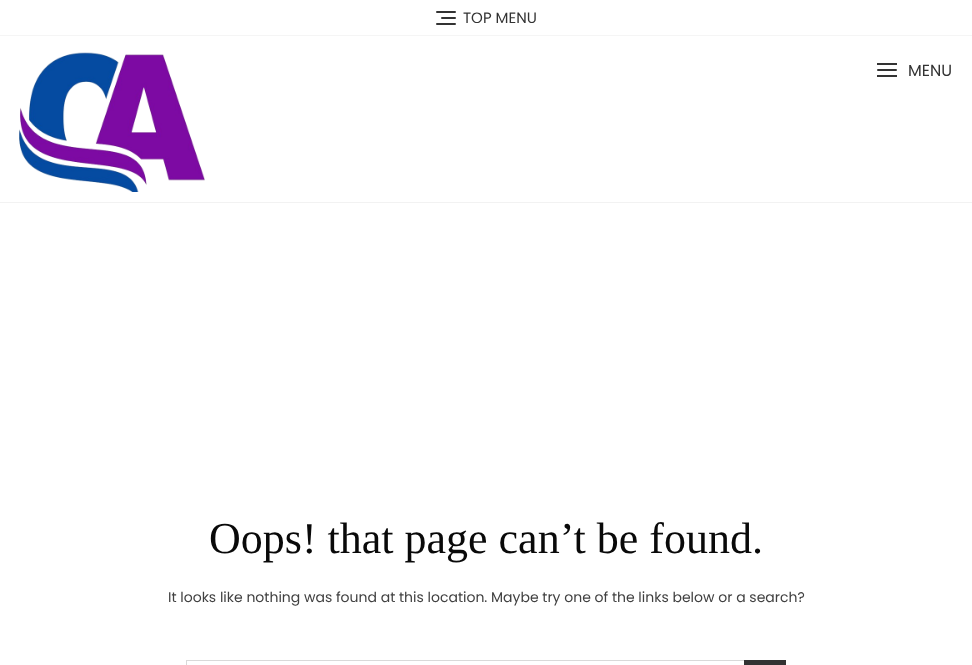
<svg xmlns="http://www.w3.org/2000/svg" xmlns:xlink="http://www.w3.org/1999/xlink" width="972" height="665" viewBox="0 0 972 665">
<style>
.cls-1{font:15px Poppins;fill:#333333}
.cls-2{font:16px Poppins;fill:#333333}
.cls-3{font:44px Liberation Serif;fill:#090909}
.cls-4{font:14px Poppins;fill:#414141}
</style>
<rect width="100%" height="100%" fill="#ffffff"/>
<rect fill="#f5f5f5" x="0" y="35" width="972" height="1"/>
<rect fill="#333333" x="441" y="17" width="15" height="2" rx="1"/>
<rect fill="#333333" x="436" y="11" width="20" height="2" rx="1"/>
<rect fill="#333333" x="436" y="23" width="20" height="2" rx="1"/>
<image xlink:href="image0.png" x="19" y="52" width="186" height="140"/>
<rect fill="#333333" x="877" y="69" width="20" height="2" rx="1"/>
<rect fill="#333333" x="877" y="63" width="20" height="2"/>
<rect fill="#333333" x="877" y="75" width="20" height="2"/>
<rect fill="#f2f2f2" x="0" y="202" width="972" height="1"/>
<rect fill="none" stroke="#d9d9d9" x="186.5" y="660.5" width="599" height="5"/>
<rect fill="#323232" x="744" y="660" width="42" height="5"/>
<text class="cls-1" x="463" y="23">TOP MENU</text>
<text class="cls-2" x="908" y="76">MENU</text>
<text class="cls-3" x="209" y="553">Oops! that page can’t be found.</text>
<text class="cls-4" x="168" y="602">It looks like nothing was found at this location. Maybe try one of the links below or a search?</text>
</svg>
